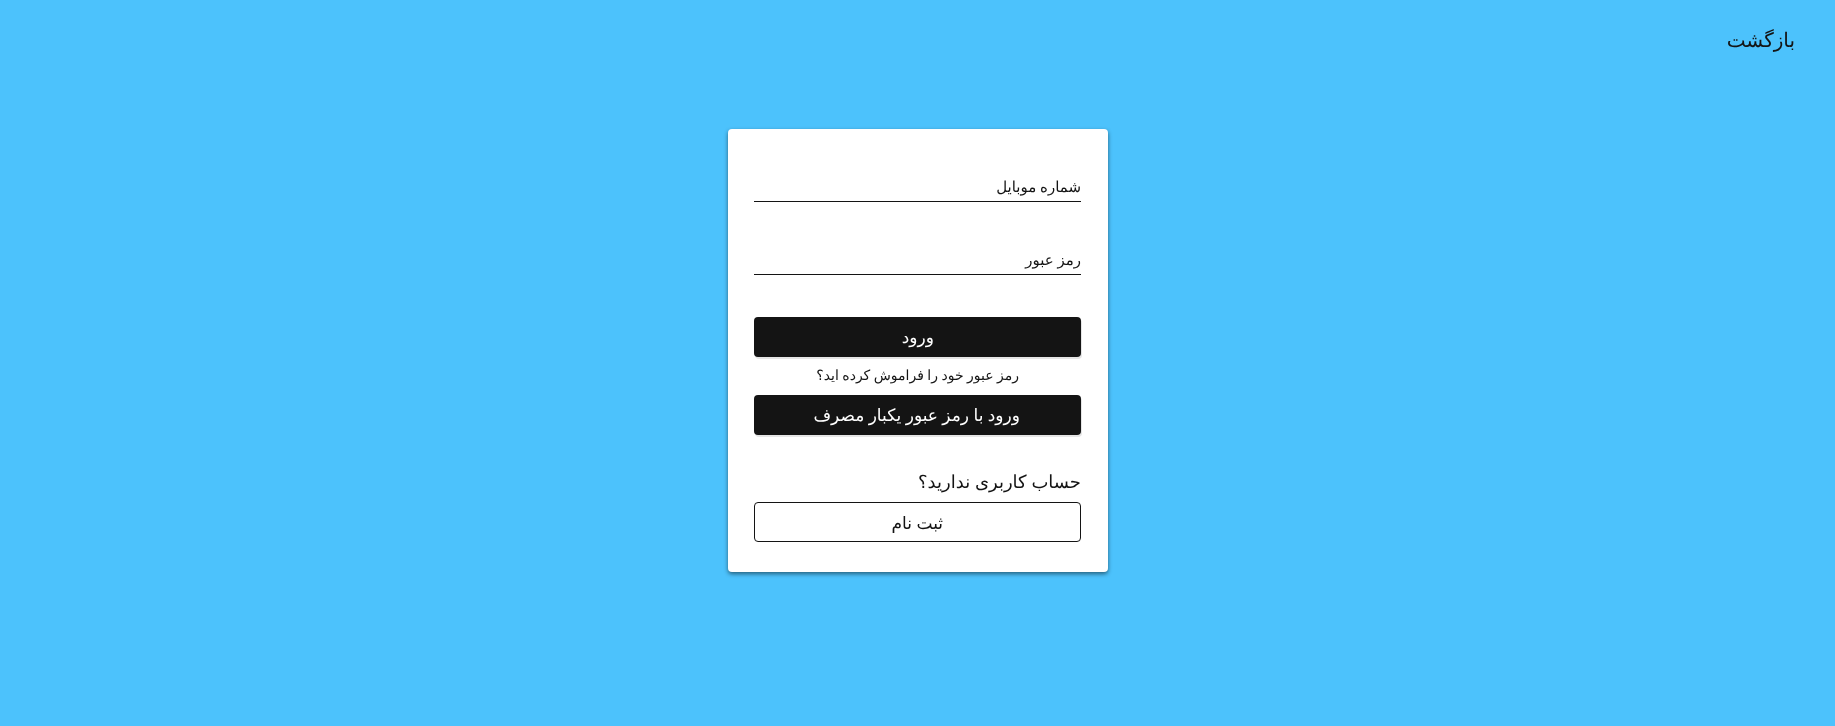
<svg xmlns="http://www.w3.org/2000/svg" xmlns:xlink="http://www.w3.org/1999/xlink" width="1835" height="726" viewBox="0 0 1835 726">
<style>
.cls-1{font:20px DejaVu Sans;direction:rtl;fill:#141414}
.cls-2{font:15px DejaVu Sans;direction:rtl;fill:#141414}
.cls-3{font:17px DejaVu Sans;direction:rtl;fill:#ffffff}
.cls-4{font:14px DejaVu Sans;direction:rtl;fill:#141414}
.cls-5{font:18px DejaVu Sans;direction:rtl;fill:#141414}
.cls-6{font:17px DejaVu Sans;direction:rtl;fill:#141414}
</style>
<rect width="100%" height="100%" fill="#4cc2fc"/>
<rect fill="#000000" fill-opacity="0.5" filter="blur(2px)" x="728" y="131" width="380" height="443" rx="4"/>
<rect fill="#ffffff" x="728" y="129" width="380" height="443" rx="4"/>
<rect fill="#141414" x="754" y="201" width="327" height="1"/>
<rect fill="#141414" x="754" y="274" width="327" height="1"/>
<rect fill="#000000" fill-opacity="0.1" filter="blur(0.5px)" x="755" y="319" width="327" height="40" rx="4"/>
<rect fill="#141414" x="754" y="317" width="327" height="40" rx="4"/>
<rect fill="#000000" fill-opacity="0.1" filter="blur(0.5px)" x="755" y="397" width="327" height="40" rx="4"/>
<rect fill="#141414" x="754" y="395" width="327" height="40" rx="4"/>
<rect fill="none" stroke="#141414" x="754.5" y="502.5" width="326" height="39" rx="3.5"/>
<text class="cls-1" x="1795" y="47">بازگشت</text>
<text class="cls-2" x="1081" y="192" word-spacing="-1">شماره موبایل</text>
<text class="cls-2" x="1081" y="265" word-spacing="-1">رمز عبور</text>
<text class="cls-3" x="934" y="343">ورود</text>
<text class="cls-4" x="1019" y="380" word-spacing="-1">رمز عبور خود را فراموش کرده اید؟</text>
<text class="cls-3" x="1020" y="421" word-spacing="-1">ورود با رمز عبور یکبار مصرف</text>
<text class="cls-5" x="1081" y="488" word-spacing="-1">حساب کاربری ندارید؟</text>
<text class="cls-6" x="943" y="529" word-spacing="-1">ثبت نام</text>
</svg>
